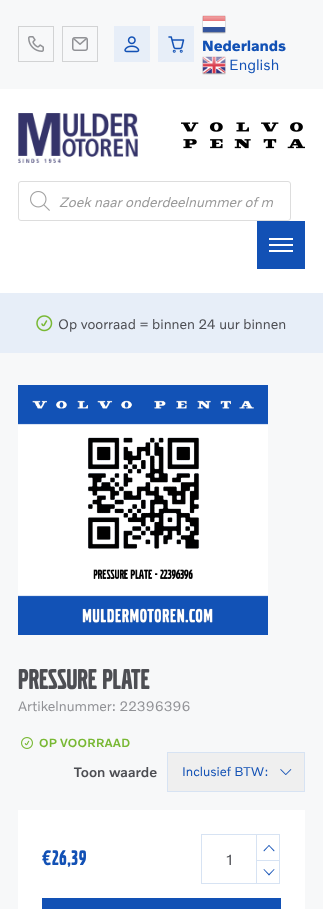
<svg xmlns="http://www.w3.org/2000/svg" xmlns:xlink="http://www.w3.org/1999/xlink" width="323" height="909" viewBox="0 0 323 909">
<style>
.cls-1{font:bold 15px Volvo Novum;fill:#1251b5}
.cls-2{font:15px Volvo Novum;fill:#1251b5}
.cls-3{font:italic 14px Volvo Novum;fill:#999999}
.cls-4{font:14px Volvo Novum;fill:#4d4e53}
.cls-5{font:500 30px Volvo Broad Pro;fill:#4d4e53}
.cls-6{font:14px Volvo Novum;fill:#919296}
.cls-7{font:500 12px Volvo Novum;fill:#78b833}
.cls-8{font:500 14px Volvo Novum;fill:#4d4e53}
.cls-9{font:13px Volvo Novum;fill:#1251b5}
.cls-10{font:500 22px Volvo Broad Pro;letter-spacing:1px;fill:#1251b5}
.cls-11{font:15px Volvo Novum;fill:#4d4e53}
</style>
<rect width="100%" height="100%" fill="#ffffff"/>
<rect fill="#f7f8f9" x="0" y="0" width="323" height="89"/>
<rect fill="none" stroke="#d2d3d4" x="18.5" y="26.5" width="35" height="35"/>
<image xlink:href="image0.png" x="28" y="36" width="16" height="16"/>
<rect fill="none" stroke="#d2d3d4" x="62.5" y="26.5" width="35" height="35"/>
<image xlink:href="image1.png" x="72" y="37" width="16" height="14"/>
<rect fill="#e7eef8" x="114" y="26" width="36" height="36"/>
<image xlink:href="image2.png" x="124" y="36" width="16" height="17"/>
<rect fill="#e7eef8" x="158" y="26" width="36" height="36"/>
<image xlink:href="image3.png" x="168" y="36" width="17" height="17"/>
<image xlink:href="image4.png" x="202" y="15" width="24" height="19"/>
<image xlink:href="image5.png" x="202" y="56" width="24" height="19"/>
<image xlink:href="image6.png" x="18" y="113" width="120" height="50"/>
<image xlink:href="image7.png" x="181" y="122" width="124" height="27"/>
<rect fill="none" stroke="#dddddd" x="18.5" y="181.5" width="272" height="39" rx="2.5"/>
<image xlink:href="image8.png" x="30" y="191" width="20" height="20"/>
<rect fill="#1251b5" x="257" y="221" width="48" height="48"/>
<rect fill="#ffffff" x="269" y="244" width="24" height="2"/>
<rect fill="#ffffff" x="269" y="238" width="24" height="2"/>
<rect fill="#ffffff" x="269" y="250" width="24" height="2"/>
<rect fill="#e7eef8" x="0" y="293" width="323" height="60"/>
<image xlink:href="image9.png" x="36" y="315" width="17" height="17"/>
<rect fill="#f7f8f9" x="0" y="353" width="323" height="556"/>
<image xlink:href="image10.png" x="18" y="385" width="250" height="250"/>
<image xlink:href="image11.png" x="21" y="737" width="12" height="12"/>
<rect fill="#efefef" x="168" y="753" width="136" height="38"/>
<image xlink:href="image12.png" x="280" y="769" width="12" height="6"/>
<rect fill="none" stroke="#d7e3f3" x="167.5" y="752.5" width="137" height="39"/>
<rect fill="#ffffff" x="18" y="810" width="287" height="99"/>
<rect fill="none" stroke="#d7e3f3" x="201.5" y="834.5" width="55" height="49"/>
<rect fill="none" stroke="#d7e3f3" x="256.5" y="857.5" width="23" height="26"/>
<rect fill="#ffffff" x="257" y="857" width="22" height="1"/>
<rect fill="none" stroke="#d7e3f3" x="256.5" y="834.5" width="23" height="26"/>
<path fill="#1251b5" d="M269.5 845.5L264 851.5L263.5 850.5L269 845Z"/>
<path fill="#1251b5" d="M274.5 850.5L274 851.5L268.5 845.5L269 845Z"/>
<path fill="#1251b5" d="M268.5 874.5L274 869L274.5 869.5L269 875.5Z"/>
<path fill="#1251b5" d="M263.5 869.5L264 869L269.5 874.5L269 875.5Z"/>
<rect fill="#1251b5" x="42" y="898" width="239" height="11"/>
<text class="cls-1" x="202" y="51">Nederlands</text>
<text class="cls-2" x="229" y="70">English</text>
<text class="cls-3" x="59" y="207">Zoek naar onderdeelnummer of m</text>
<text class="cls-4" x="58" y="329">Op voorraad = binnen 24 uur binnen</text>
<text class="cls-5" x="18" y="689">PRESSURE PLATE</text>
<text class="cls-6" x="18" y="711">Artikelnummer: 22396396</text>
<text class="cls-7" x="39" y="747">OP VOORRAAD</text>
<text class="cls-8" x="74" y="777">Toon waarde</text>
<text class="cls-9" x="182" y="776">Inclusief BTW:</text>
<text class="cls-10" x="42" y="865">€26,39</text>
<text class="cls-11" x="226" y="865">1</text>
</svg>
